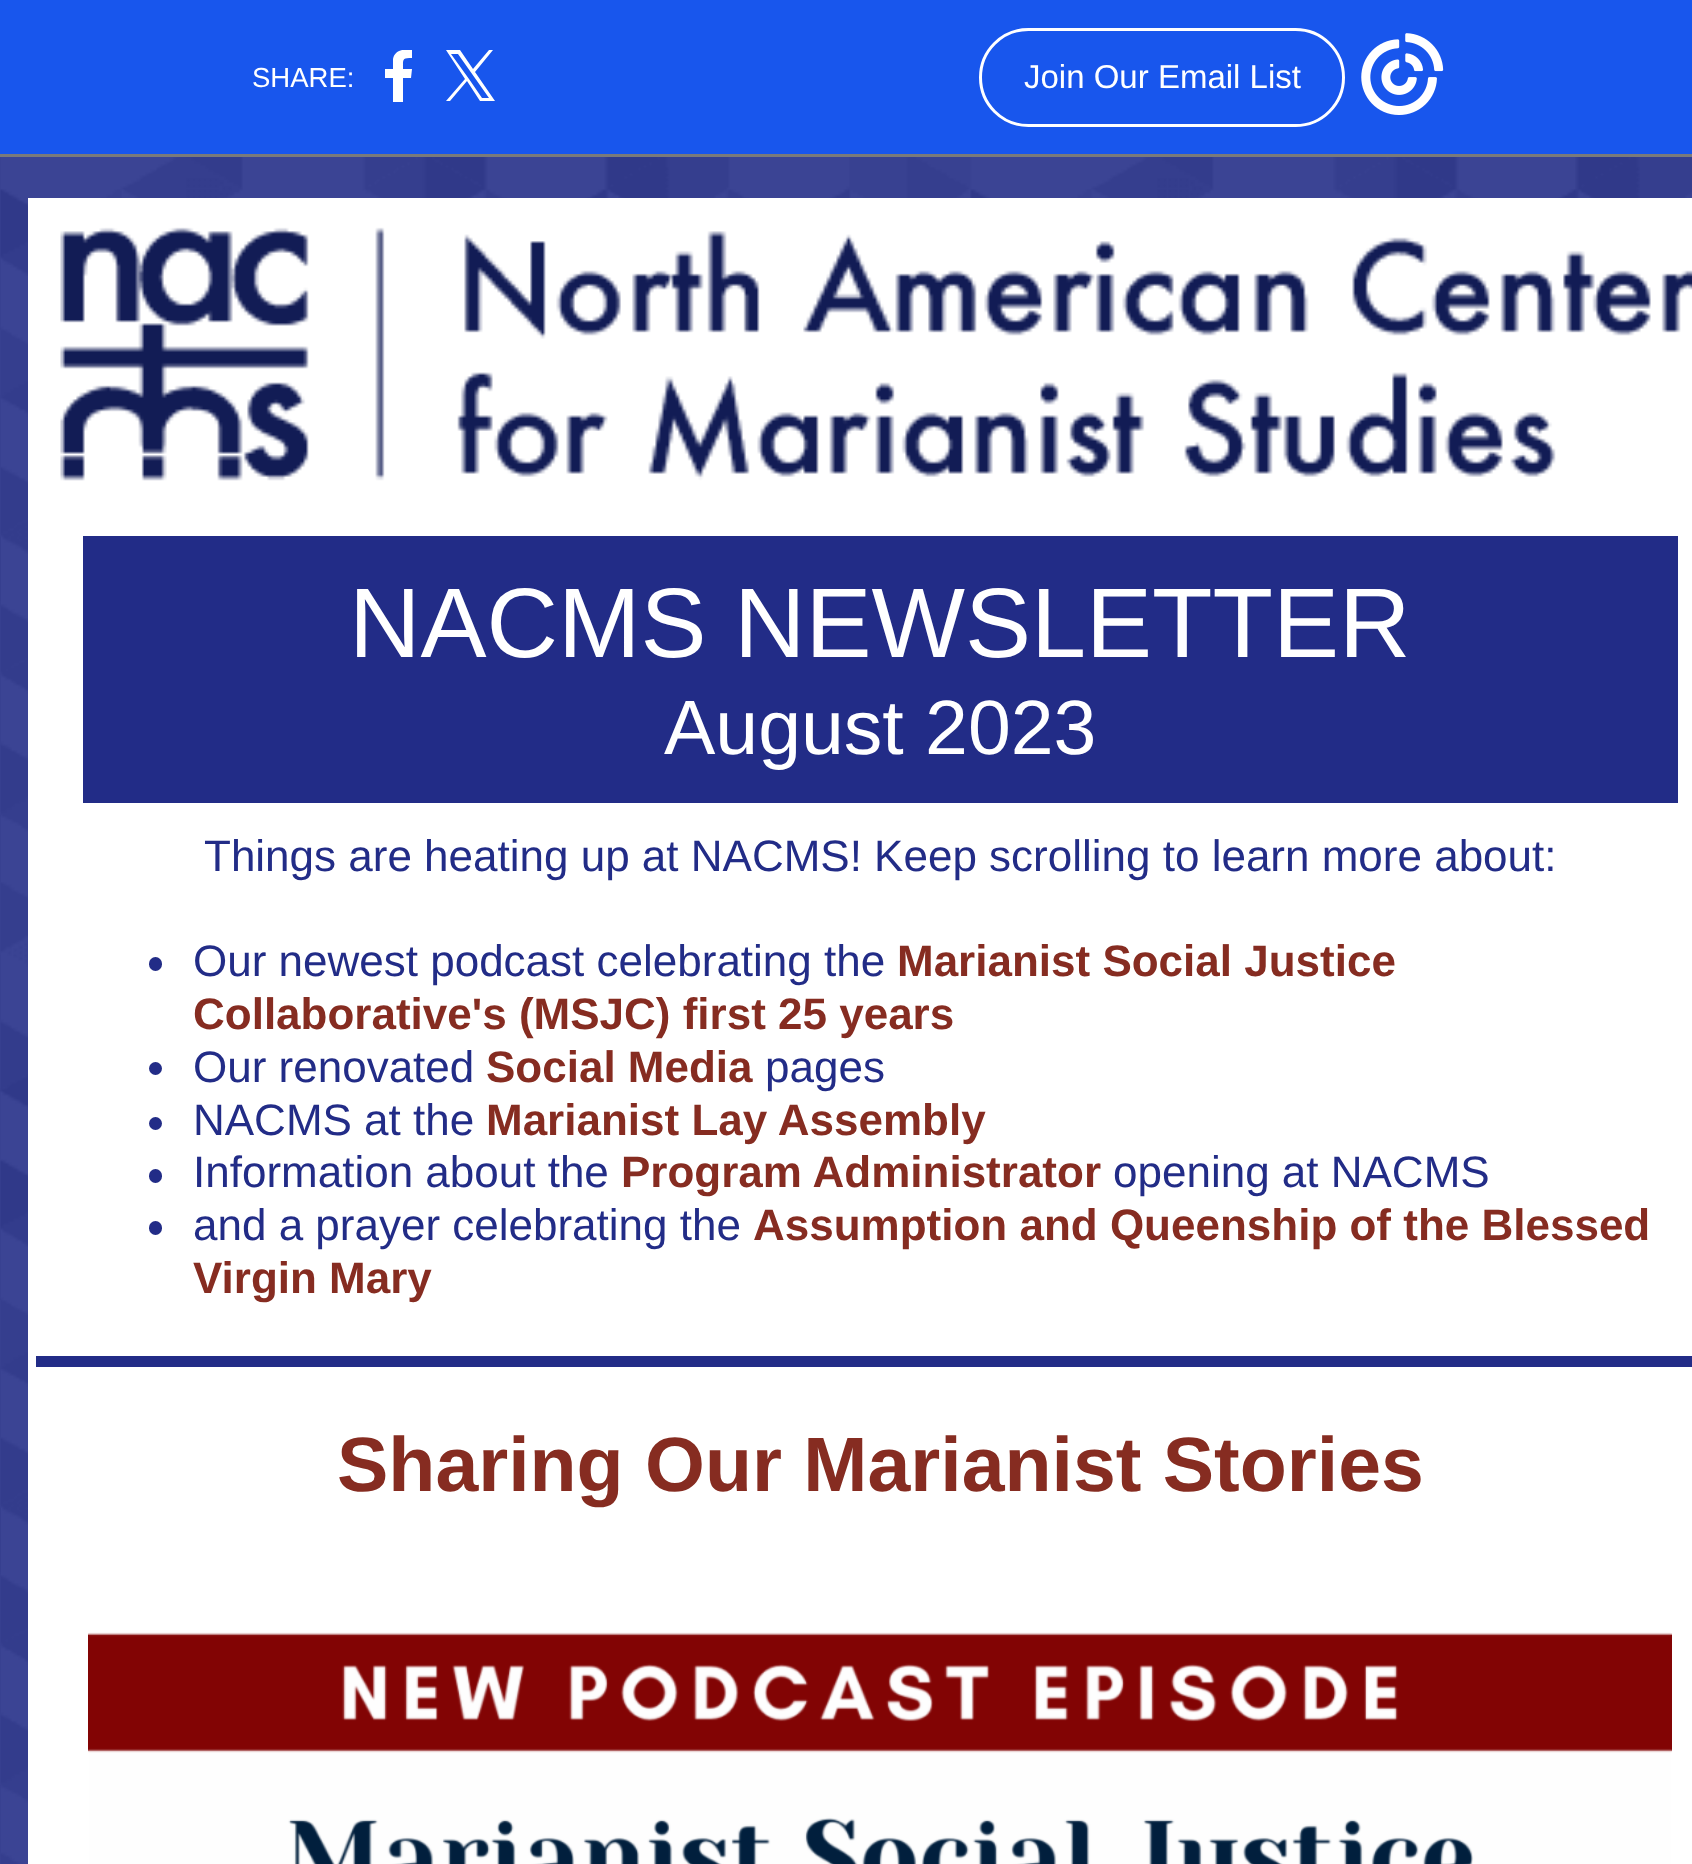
<svg xmlns="http://www.w3.org/2000/svg" xmlns:xlink="http://www.w3.org/1999/xlink" width="1692" height="1864" viewBox="0 0 1692 1864">
<style>
.cls-1{font:27.5px Liberation Sans;fill:#ffffff}
.cls-2{font:33px Liberation Sans;fill:#ffffff}
.cls-3{font:99px Liberation Sans;fill:#ffffff}
.cls-4{font:77px Liberation Sans;fill:#ffffff}
.cls-5{font:44px Liberation Sans;fill:#222c87}
.cls-6{font:bold 44px Liberation Sans;fill:#862c21}
.cls-7{font:bold 77px Liberation Sans;fill:#862c21}
</style>
<defs>
<clipPath id="clip1"><rect x="385" y="50" width="28" height="52"/></clipPath>
</defs>
<rect width="100%" height="100%" fill="#1856ed"/>
<rect fill="#7a7a7a" x="0" y="154" width="1692" height="3"/>
<g clip-path="url(#clip1)">
<path fill="#ffffff" fill-rule="evenodd" d="M403 102V78H411L412 69H403C403 59 402 58 412 58V50C405 49 395 49 393 59V69H385V78H393V102Z"/>
</g>
<path fill="#ffffff" d="M475 72L493 50H489L473 69L460 50H446L465 79L446 101H450L467 81L480 101H495ZM469 79L451 54H458L489 98H482Z"/>
<rect fill="none" stroke="#ffffff" stroke-width="3" x="980.5" y="29.5" width="363" height="96" rx="48"/>
<image xlink:href="image0.png" x="1361" y="33" width="83" height="82"/>
<rect fill="#222c87" x="0" y="157" width="1692" height="1707"/>
<image xlink:href="image1.png" x="0" y="157" width="1692" height="1707"/>
<rect fill="#ffffff" x="28" y="198" width="1664" height="1666"/>
<image xlink:href="image2.png" x="60" y="227" width="1632" height="254"/>
<rect fill="#222c87" x="83" y="536" width="1595" height="267"/>
<rect fill="#222c87" x="149" y="957" width="13" height="14" rx="6.5"/>
<circle fill="#222c87" cx="155.5" cy="1068.5" r="6.5"/>
<circle fill="#222c87" cx="155.5" cy="1123.5" r="6.5"/>
<rect fill="#222c87" x="149" y="1169" width="13" height="14" rx="6.5"/>
<rect fill="#222c87" x="149" y="1221" width="13" height="14" rx="6.5"/>
<rect fill="#222c87" x="36" y="1356" width="1656" height="11"/>
<image xlink:href="image3.png" x="88" y="1632" width="1584" height="232"/>
<text class="cls-1" x="252" y="87">SHARE:</text>
<text class="cls-2" x="1024" y="88">Join Our Email List</text>
<text class="cls-3" x="349" y="657">NACMS NEWSLETTER</text>
<text class="cls-4" x="664" y="754">August 2023</text>
<text class="cls-5" x="204" y="871">Things are heating up at NACMS! Keep scrolling to learn more about:</text>
<text class="cls-5" x="193" y="976">Our newest podcast celebrating the</text>
<text class="cls-6" x="897" y="976">Marianist Social Justice</text>
<text class="cls-6" x="193" y="1029">Collaborative's (MSJC) first 25 years</text>
<text class="cls-5" x="193" y="1082">Our renovated</text>
<text class="cls-6" x="486" y="1082">Social Media</text>
<text class="cls-5" x="765" y="1082">pages</text>
<text class="cls-5" x="193" y="1135">NACMS at the</text>
<text class="cls-6" x="486" y="1135">Marianist Lay Assembly</text>
<text class="cls-5" x="193" y="1187">Information about the</text>
<text class="cls-6" x="621" y="1187">Program Administrator</text>
<text class="cls-5" x="1113" y="1187">opening at NACMS</text>
<text class="cls-5" x="193" y="1240">and a prayer celebrating the</text>
<text class="cls-6" x="753" y="1240">Assumption and Queenship of the Blessed</text>
<text class="cls-6" x="193" y="1293">Virgin Mary</text>
<text class="cls-7" x="337" y="1491">Sharing Our Marianist Stories</text>
</svg>
